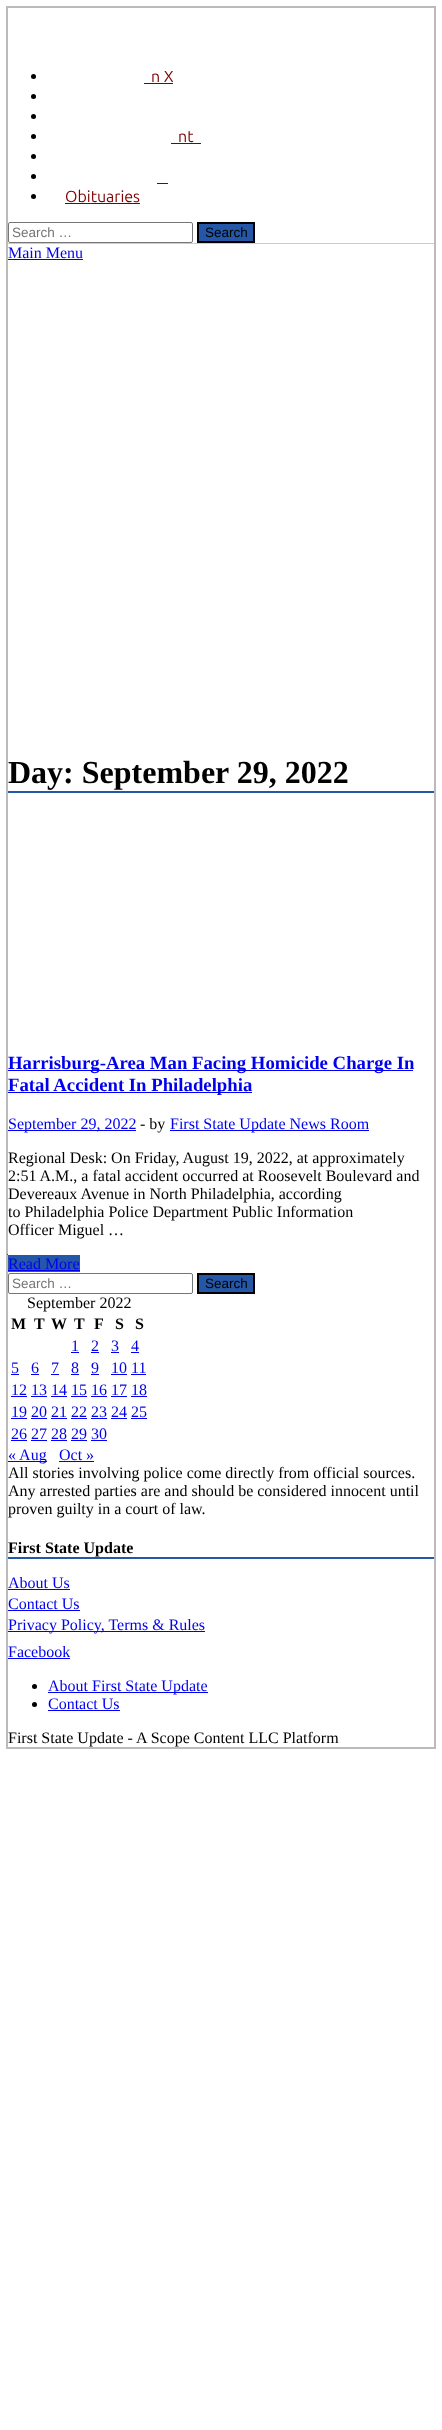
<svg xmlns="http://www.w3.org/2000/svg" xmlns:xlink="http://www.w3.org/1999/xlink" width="442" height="2430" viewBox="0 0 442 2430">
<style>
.cls-1{font:16px Ubuntu;fill:#7e0101}
.cls-2{font:13.5px Liberation Sans;fill:#757575}
.cls-3{font:13.5px Liberation Sans;fill:#000000}
.cls-4{font:16px Liberation Serif;fill:#0000ee}
.cls-5{font:bold 32px Liberation Serif;fill:#000000}
.cls-6{font:bold 18.75px Liberation Serif;fill:#0000ee}
.cls-7{font:16px Liberation Serif;fill:#000000}
.cls-8{font:bold 16px Liberation Serif;fill:#000000}
</style>
<rect width="100%" height="100%" fill="#ffffff"/>
<rect fill="none" stroke="#bbbbbb" stroke-width="2" x="7" y="7" width="428" height="1741"/>
<rect fill="#cccccc" x="8" y="243" width="426" height="1"/>
<circle fill="#000000" cx="33.5" cy="76.5" r="2.5"/>
<rect fill="#7e0101" x="144" y="83" width="29" height="1"/>
<circle fill="#000000" cx="33.5" cy="96.5" r="2.5"/>
<circle fill="#000000" cx="33.5" cy="116.5" r="2.5"/>
<circle fill="#000000" cx="33.5" cy="136.5" r="2.5"/>
<rect fill="#7e0101" x="171" y="143" width="30" height="1"/>
<circle fill="#000000" cx="33.5" cy="156.5" r="2.5"/>
<circle fill="#000000" cx="33.5" cy="176.5" r="2.5"/>
<rect fill="#7e0101" x="157" y="183" width="11" height="1"/>
<circle fill="#000000" cx="33.5" cy="196.5" r="2.5"/>
<rect fill="#7e0101" x="65" y="203" width="75" height="1"/>
<rect fill="none" stroke="#767676" x="8.5" y="222.5" width="184" height="20" rx="1.5"/>
<rect fill="#2457a7" stroke="#000000" stroke-width="2" x="198" y="223" width="56" height="19"/>
<rect fill="#0000ee" x="8" y="259" width="75" height="1"/>
<rect fill="#2457a7" x="8" y="791" width="426" height="2"/>
<rect fill="#0000ee" x="8" y="1070" width="405" height="1"/>
<rect fill="#0000ee" x="8" y="1092" width="244" height="1"/>
<rect fill="#0000ee" x="8" y="1130" width="128" height="1"/>
<rect fill="#0000ee" x="170" y="1130" width="199" height="1"/>
<rect fill="#2457a7" x="7" y="1254" width="1" height="1"/>
<rect fill="#2457a7" x="8" y="1255" width="72" height="17"/>
<rect fill="#0000ee" x="8" y="1270" width="72" height="1"/>
<rect fill="none" stroke="#767676" x="8.5" y="1273.5" width="184" height="20" rx="1.5"/>
<rect fill="#2457a7" stroke="#000000" stroke-width="2" x="198" y="1274" width="56" height="19"/>
<rect fill="#0000ee" x="71" y="1352" width="8" height="1"/>
<rect fill="#0000ee" x="91" y="1352" width="8" height="1"/>
<rect fill="#0000ee" x="111" y="1352" width="8" height="1"/>
<rect fill="#0000ee" x="131" y="1352" width="8" height="1"/>
<rect fill="#0000ee" x="11" y="1374" width="8" height="1"/>
<rect fill="#0000ee" x="31" y="1374" width="8" height="1"/>
<rect fill="#0000ee" x="51" y="1374" width="8" height="1"/>
<rect fill="#0000ee" x="71" y="1374" width="8" height="1"/>
<rect fill="#0000ee" x="91" y="1374" width="8" height="1"/>
<rect fill="#0000ee" x="111" y="1374" width="16" height="1"/>
<rect fill="#0000ee" x="131" y="1374" width="15" height="1"/>
<rect fill="#0000ee" x="11" y="1396" width="16" height="1"/>
<rect fill="#0000ee" x="31" y="1396" width="16" height="1"/>
<rect fill="#0000ee" x="51" y="1396" width="16" height="1"/>
<rect fill="#0000ee" x="71" y="1396" width="16" height="1"/>
<rect fill="#0000ee" x="91" y="1396" width="16" height="1"/>
<rect fill="#0000ee" x="111" y="1396" width="16" height="1"/>
<rect fill="#0000ee" x="131" y="1396" width="16" height="1"/>
<rect fill="#0000ee" x="11" y="1418" width="16" height="1"/>
<rect fill="#0000ee" x="31" y="1418" width="16" height="1"/>
<rect fill="#0000ee" x="51" y="1418" width="16" height="1"/>
<rect fill="#0000ee" x="71" y="1418" width="16" height="1"/>
<rect fill="#0000ee" x="91" y="1418" width="16" height="1"/>
<rect fill="#0000ee" x="111" y="1418" width="16" height="1"/>
<rect fill="#0000ee" x="131" y="1418" width="16" height="1"/>
<rect fill="#0000ee" x="11" y="1440" width="16" height="1"/>
<rect fill="#0000ee" x="31" y="1440" width="16" height="1"/>
<rect fill="#0000ee" x="51" y="1440" width="16" height="1"/>
<rect fill="#0000ee" x="71" y="1440" width="16" height="1"/>
<rect fill="#0000ee" x="91" y="1440" width="16" height="1"/>
<rect fill="#0000ee" x="8" y="1461" width="39" height="1"/>
<rect fill="#0000ee" x="59" y="1461" width="35" height="1"/>
<rect fill="#2457a7" x="8" y="1557" width="426" height="2"/>
<rect fill="#0000ee" x="8" y="1589" width="62" height="1"/>
<rect fill="#0000ee" x="8" y="1610" width="72" height="1"/>
<rect fill="#0000ee" x="8" y="1631" width="197" height="1"/>
<rect fill="#0000ee" x="8" y="1658" width="62" height="1"/>
<circle fill="#000000" cx="34.5" cy="1686.5" r="2.5"/>
<rect fill="#0000ee" x="48" y="1692" width="160" height="1"/>
<circle fill="#000000" cx="34.5" cy="1704.5" r="2.5"/>
<rect fill="#0000ee" x="48" y="1710" width="72" height="1"/>
<text class="cls-1" x="151" y="82">n X</text>
<text class="cls-1" x="178" y="142">nt</text>
<text class="cls-1" x="65" y="202">Obituaries</text>
<text class="cls-2" x="12" y="237">Search …</text>
<text class="cls-3" x="205" y="237">Search</text>
<text class="cls-4" x="8" y="258">Main Menu</text>
<text class="cls-5" x="8" y="783">Day: September 29, 2022</text>
<text class="cls-6"><tspan x="8" y="1069">Harrisburg-Area Man Facing Homicide Charge In</tspan><tspan x="8" y="1091">Fatal Accident In Philadelphia</tspan></text>
<text class="cls-4" x="8" y="1129">September 29, 2022</text>
<text class="cls-7" x="140" y="1129">- by</text>
<text class="cls-4" x="170" y="1129">First State Update News Room</text>
<text class="cls-7"><tspan x="8" y="1163">Regional Desk: On Friday, August 19, 2022, at approximately</tspan><tspan x="8" y="1181">2:51 A.M., a fatal accident occurred at Roosevelt Boulevard and</tspan><tspan x="8" y="1199">Devereaux Avenue in North Philadelphia, according</tspan><tspan x="8" y="1217">to Philadelphia Police Department Public Information</tspan><tspan x="8" y="1235">Officer Miguel …</tspan></text>
<text class="cls-4" x="8" y="1269">Read More</text>
<text class="cls-2" x="12" y="1288">Search …</text>
<text class="cls-3" x="205" y="1288">Search</text>
<text class="cls-7" x="27" y="1308">September 2022</text>
<text class="cls-8" x="11" y="1329">M</text>
<text class="cls-8" x="34" y="1329">T</text>
<text class="cls-8" x="51" y="1329">W</text>
<text class="cls-8" x="74" y="1329">T</text>
<text class="cls-8" x="94" y="1329">F</text>
<text class="cls-8" x="115" y="1329">S</text>
<text class="cls-8" x="135" y="1329">S</text>
<text class="cls-4" x="71" y="1351">1</text>
<text class="cls-4" x="91" y="1351">2</text>
<text class="cls-4" x="111" y="1351">3</text>
<text class="cls-4" x="131" y="1351">4</text>
<text class="cls-4" x="11" y="1373">5</text>
<text class="cls-4" x="31" y="1373">6</text>
<text class="cls-4" x="51" y="1373">7</text>
<text class="cls-4" x="71" y="1373">8</text>
<text class="cls-4" x="91" y="1373">9</text>
<text class="cls-4" x="111" y="1373">10 11</text>
<text class="cls-4"><tspan x="11" y="1395">12 13 14 15 16 17 18</tspan><tspan x="11" y="1417">19 20 21 22 23 24 25</tspan><tspan x="11" y="1439">26 27 28 29 30</tspan></text>
<text class="cls-4" x="8" y="1460">« Aug</text>
<text class="cls-4" x="59" y="1460">Oct »</text>
<text class="cls-7"><tspan x="8" y="1478">All stories involving police come directly from official sources.</tspan><tspan x="8" y="1496">Any arrested parties are and should be considered innocent until</tspan><tspan x="8" y="1514">proven guilty in a court of law.</tspan></text>
<text class="cls-8" x="8" y="1553">First State Update</text>
<text class="cls-4"><tspan x="8" y="1588">About Us</tspan><tspan x="8" y="1609">Contact Us</tspan><tspan x="8" y="1630">Privacy Policy, Terms &amp; Rules</tspan><tspan x="8" y="1657">Facebook</tspan></text>
<text class="cls-4"><tspan x="48" y="1691">About First State Update</tspan><tspan x="48" y="1709">Contact Us</tspan></text>
<text class="cls-7" x="8" y="1743">First State Update - A Scope Content LLC Platform</text>
</svg>
